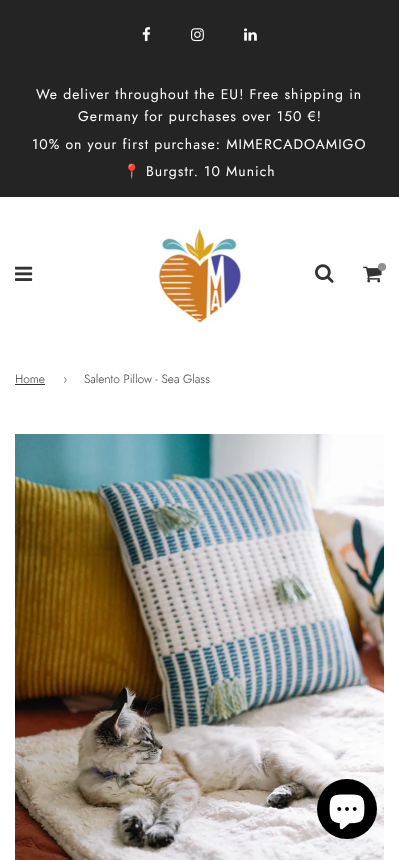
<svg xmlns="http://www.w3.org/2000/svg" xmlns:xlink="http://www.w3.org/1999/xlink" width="399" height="860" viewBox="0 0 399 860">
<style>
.cls-1{font:14px Jost;letter-spacing:1px;fill:#ffffff}
.cls-2{font:14px Noto Color Emoji;letter-spacing:1px;fill:#ffffff}
.cls-3{font:300 12px Jost;fill:#333333}
</style>
<rect width="100%" height="100%" fill="#ffffff"/>
<rect fill="#242424" x="0" y="0" width="399" height="197"/>
<image xlink:href="image0.png" x="142" y="27" width="9" height="15"/>
<image xlink:href="image1.png" x="191" y="28" width="13" height="14"/>
<image xlink:href="image2.png" x="244" y="28" width="13" height="13"/>
<image xlink:href="image3.png" x="15" y="266" width="18" height="15"/>
<image xlink:href="image4.png" x="158" y="227" width="83" height="97"/>
<image xlink:href="image5.png" x="315" y="264" width="19" height="19"/>
<image xlink:href="image6.png" x="363" y="266" width="19" height="17"/>
<circle fill="#919191" cx="382" cy="267" r="4"/>
<rect fill="#333333" x="15" y="384" width="30" height="1"/>
<image xlink:href="image7.png" x="15" y="434" width="369" height="426"/>
<circle fill="#000000" cx="347" cy="809" r="30"/>
<image xlink:href="image8.png" x="329" y="794" width="36" height="36"/>
<text class="cls-1" x="36" y="99">We deliver throughout the EU! Free shipping in</text>
<text class="cls-1" x="78" y="121">Germany for purchases over 150 €!</text>
<text class="cls-1" x="32" y="149">10% on your first purchase: MIMERCADOAMIGO</text>
<text class="cls-2" x="123" y="176">📍</text>
<text class="cls-1" x="146" y="176">Burgstr. 10 Munich</text>
<text class="cls-3" x="15" y="383">Home</text>
<text class="cls-3" x="63" y="383">›</text>
<text class="cls-3" x="84" y="383">Salento Pillow - Sea Glass</text>
</svg>
